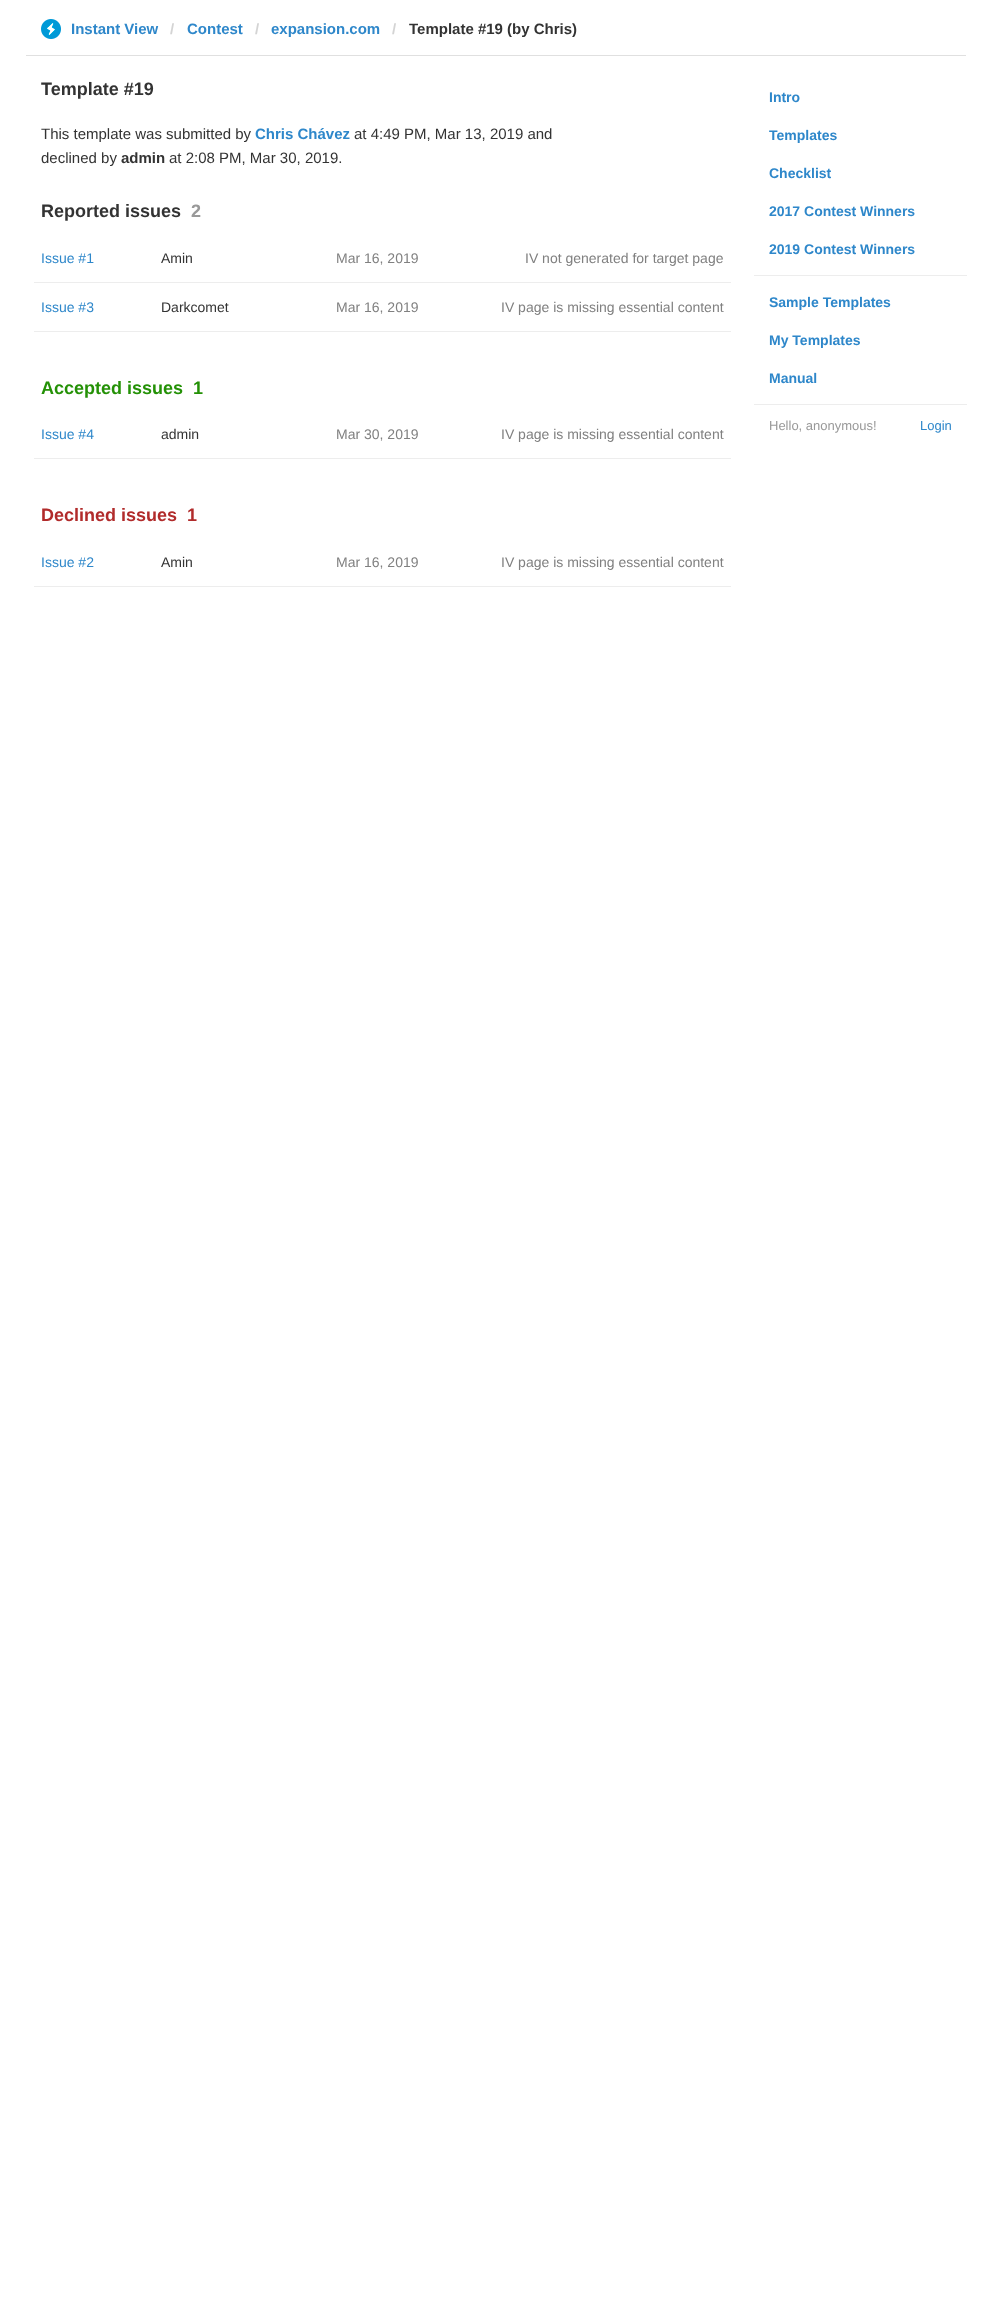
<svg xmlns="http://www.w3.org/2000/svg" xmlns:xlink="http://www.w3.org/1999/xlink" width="992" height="2303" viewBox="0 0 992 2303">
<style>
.cls-1{font:bold 15px Liberation Sans;fill:#2e87ca}
.cls-2{font:bold 15px Liberation Sans;fill:#d4d4d4}
.cls-3{font:bold 15px Liberation Sans;fill:#333333}
.cls-4{font:bold 18px Liberation Sans;fill:#333333}
.cls-5{font:15px Liberation Sans;fill:#333333}
.cls-6{font:bold 18px Liberation Sans;fill:#999999}
.cls-7{font:14px Liberation Sans;fill:#2e87ca}
.cls-8{font:14px Liberation Sans;fill:#333333}
.cls-9{font:14px Liberation Sans;fill:#808080}
.cls-10{font:bold 18px Liberation Sans;fill:#249106}
.cls-11{font:bold 18px Liberation Sans;fill:#b12b2b}
.cls-12{font:bold 14px Liberation Sans;fill:#2e87ca}
.cls-13{font:13px Liberation Sans;fill:#999999}
.cls-14{font:13px Liberation Sans;fill:#2e87ca}
</style>
<rect width="100%" height="100%" fill="#ffffff"/>
<rect fill="#e0e0e0" x="26" y="55" width="940" height="1"/>
<image xlink:href="image0.png" x="41" y="19" width="20" height="20"/>
<rect fill="#ededed" x="34" y="282" width="697" height="1"/>
<rect fill="#ededed" x="34" y="331" width="697" height="1"/>
<rect fill="#ededed" x="34" y="458" width="697" height="1"/>
<rect fill="#ededed" x="34" y="586" width="697" height="1"/>
<rect fill="#ededed" x="754" y="275" width="213" height="1"/>
<rect fill="#ededed" x="754" y="404" width="213" height="1"/>
<text class="cls-1" x="71" y="34">Instant View</text>
<text class="cls-2" x="170" y="34">/</text>
<text class="cls-1" x="187" y="34">Contest</text>
<text class="cls-2" x="255" y="34">/</text>
<text class="cls-1" x="271" y="34">expansion.com</text>
<text class="cls-2" x="392" y="34">/</text>
<text class="cls-3" x="409" y="34">Template #19 (by Chris)</text>
<text class="cls-4" x="41" y="95">Template #19</text>
<text class="cls-5" x="41" y="139">This template was submitted by</text>
<text class="cls-1" x="255" y="139">Chris Chávez</text>
<text class="cls-5" x="354" y="139">at 4:49 PM, Mar 13, 2019 and</text>
<text class="cls-5" x="41" y="163">declined by</text>
<text class="cls-3" x="121" y="163">admin</text>
<text class="cls-5" x="169" y="163">at 2:08 PM, Mar 30, 2019.</text>
<text class="cls-4" x="41" y="217">Reported issues</text>
<text class="cls-6" x="191" y="217">2</text>
<text class="cls-7" x="41" y="263">Issue #1</text>
<text class="cls-8" x="161" y="263">Amin</text>
<text class="cls-9" x="336" y="263">Mar 16, 2019</text>
<text class="cls-9" x="525" y="263">IV not generated for target page</text>
<text class="cls-7" x="41" y="312">Issue #3</text>
<text class="cls-8" x="161" y="312">Darkcomet</text>
<text class="cls-9" x="336" y="312">Mar 16, 2019</text>
<text class="cls-9" x="501" y="312">IV page is missing essential content</text>
<text class="cls-10" x="41" y="394">Accepted issues</text>
<text class="cls-10" x="193" y="394">1</text>
<text class="cls-7" x="41" y="439">Issue #4</text>
<text class="cls-8" x="161" y="439">admin</text>
<text class="cls-9" x="336" y="439">Mar 30, 2019</text>
<text class="cls-9" x="501" y="439">IV page is missing essential content</text>
<text class="cls-11" x="41" y="521">Declined issues</text>
<text class="cls-11" x="187" y="521">1</text>
<text class="cls-7" x="41" y="567">Issue #2</text>
<text class="cls-8" x="161" y="567">Amin</text>
<text class="cls-9" x="336" y="567">Mar 16, 2019</text>
<text class="cls-9" x="501" y="567">IV page is missing essential content</text>
<text class="cls-12" x="769" y="102">Intro</text>
<text class="cls-12" x="769" y="140">Templates</text>
<text class="cls-12" x="769" y="178">Checklist</text>
<text class="cls-12" x="769" y="216">2017 Contest Winners</text>
<text class="cls-12" x="769" y="254">2019 Contest Winners</text>
<text class="cls-12" x="769" y="307">Sample Templates</text>
<text class="cls-12" x="769" y="345">My Templates</text>
<text class="cls-12" x="769" y="383">Manual</text>
<text class="cls-13" x="769" y="430">Hello, anonymous!</text>
<text class="cls-14" x="920" y="430">Login</text>
</svg>
